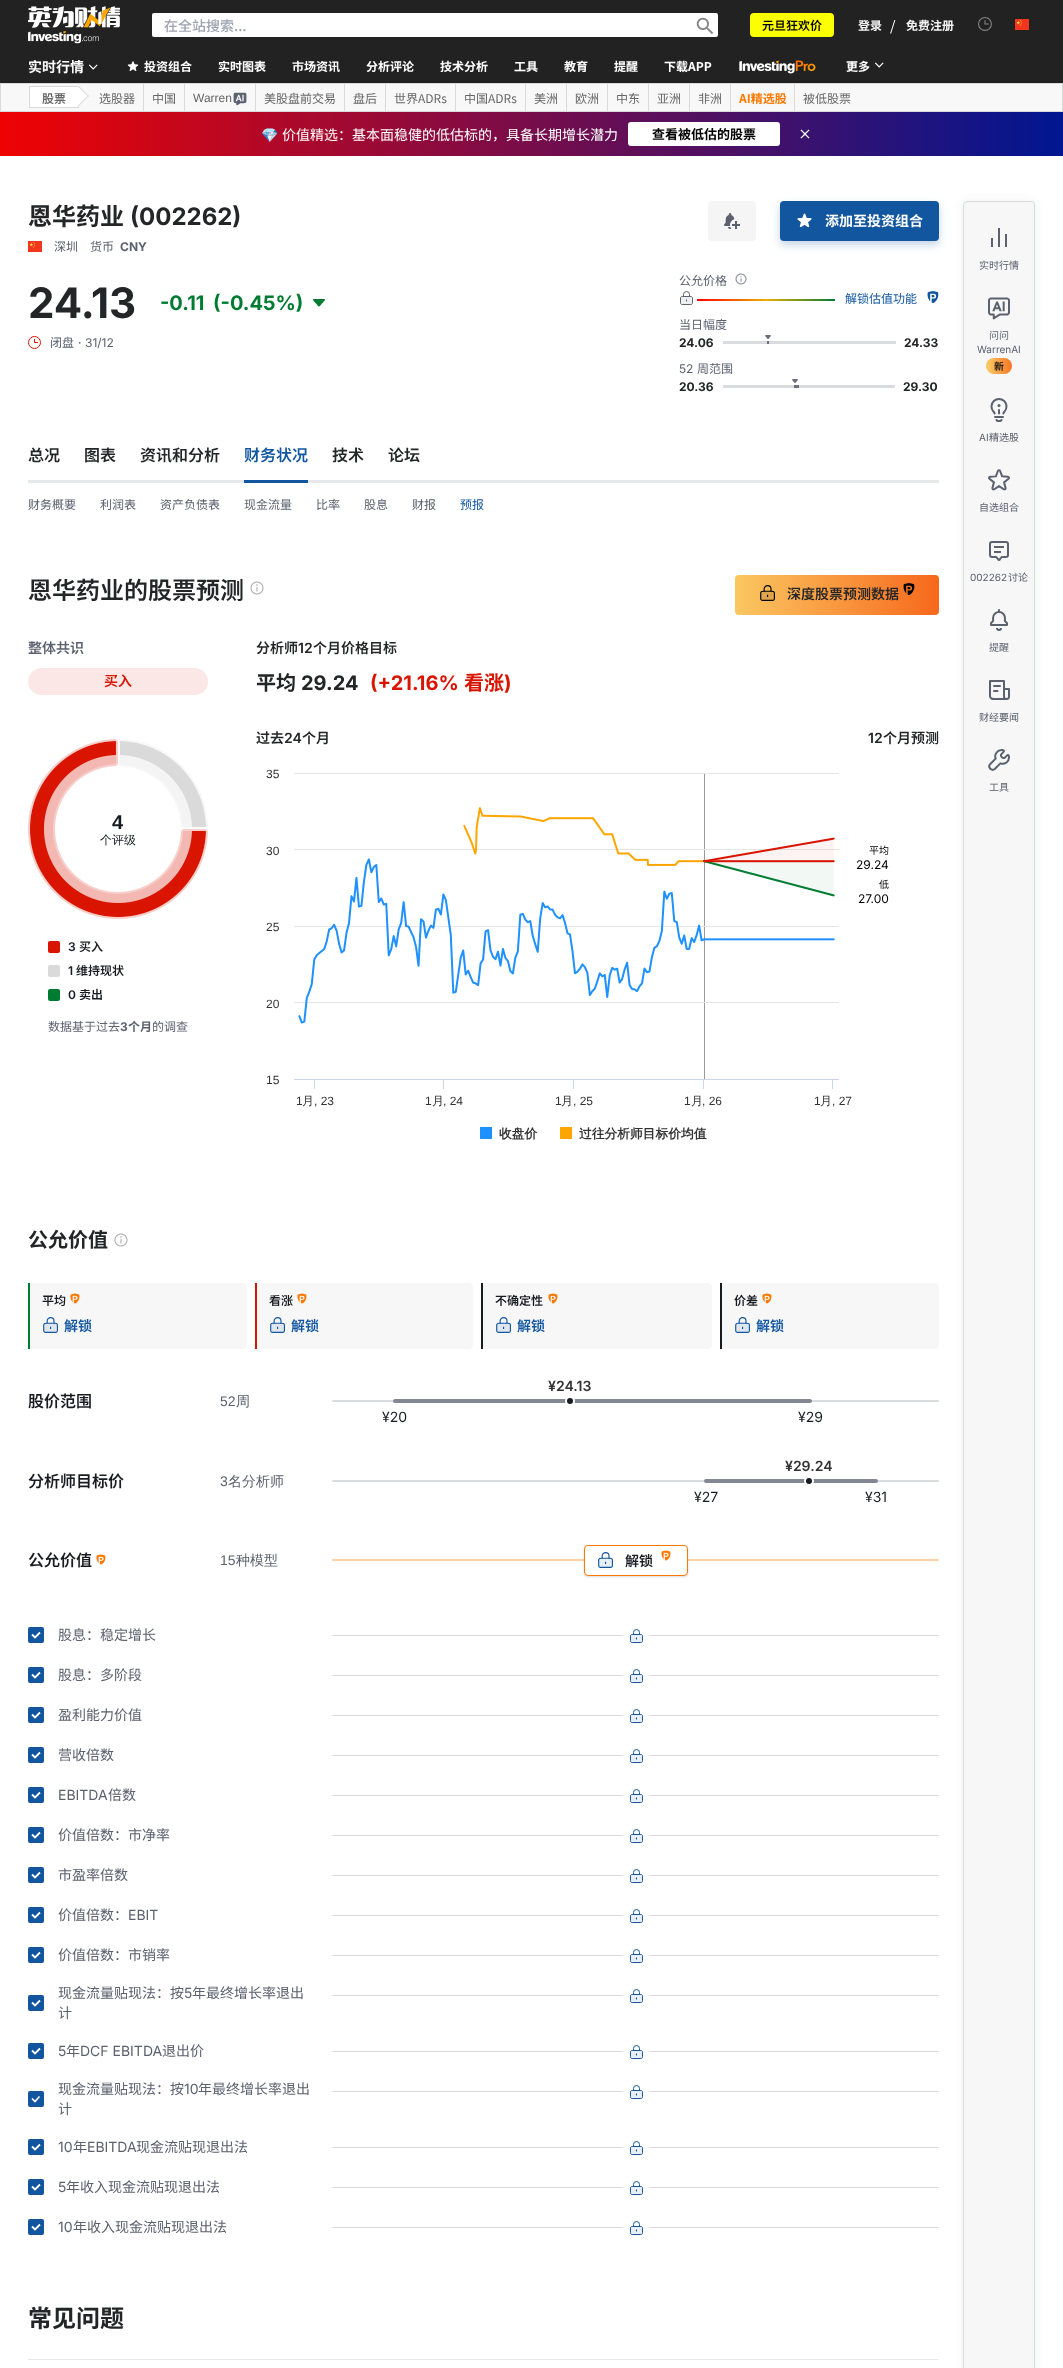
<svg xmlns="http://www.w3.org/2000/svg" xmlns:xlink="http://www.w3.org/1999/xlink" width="1063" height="2368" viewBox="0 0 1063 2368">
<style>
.cls-1{font:500 14px Noto Sans SC;fill:#9ca3af}
.cls-2{font:600 12px Noto Sans SC;fill:#000000}
.cls-3{font:bold 12px Noto Sans SC;fill:#f2f2f2}
.cls-4{font:14px Noto Sans SC;fill:#ffffff}
.cls-5{font:bold 14px Noto Sans SC;fill:#ffffff}
.cls-6{font:bold 12px Noto Sans SC;fill:#ffffff}
.cls-7{font:600 12px Noto Sans SC;fill:#666666}
.cls-8{font:12px Noto Sans SC;fill:#666666}
.cls-9{font:12px Liberation Sans;fill:#666666}
.cls-10{font:bold 12px Noto Sans SC;fill:#ff7901}
.cls-11{font:14px Noto Color Emoji;fill:#ffffff}
.cls-12{font:bold 13px Noto Sans SC;fill:#000000}
.cls-13{font:bold 24px Noto Sans SC;fill:#232526}
.cls-14{font:bold 24px Inter;fill:#232526}
.cls-15{font:12px Noto Sans SC;fill:#5b616e}
.cls-16{font:bold 12px Inter;fill:#5b616e}
.cls-17{font:bold 42px Inter;fill:#232526}
.cls-18{font:bold 20px Inter;fill:#007c32}
.cls-19{font:12px Inter;fill:#5b616e}
.cls-20{font:12px Noto Sans SC;fill:#1256a0}
.cls-21{font:bold 12px Inter;fill:#232526}
.cls-22{font:600 16px Noto Sans SC;fill:#232526}
.cls-23{font:600 16px Noto Sans SC;fill:#1256a0}
.cls-24{font:600 24px Noto Sans SC;fill:#232526}
.cls-25{font:600 14px Noto Sans SC;fill:#232526}
.cls-26{font:600 14px Noto Sans SC;fill:#5b616e}
.cls-27{font:600 14px Noto Sans SC;fill:#d91400}
.cls-28{font:bold 20px Liberation Sans;fill:#181c21}
.cls-29{font:500 12px WenQuanYi Zen Hei;fill:#181c21}
.cls-30{font:600 12px Inter;fill:#181c21}
.cls-31{font:600 12px Noto Sans SC;fill:#181c21}
.cls-32{font:bold 12px Noto Sans SC;fill:#5b616e}
.cls-33{font:600 14px Inter;fill:#232526}
.cls-34{font:bold 20px Noto Sans SC;fill:#232526}
.cls-35{font:bold 20px Inter;fill:#232526}
.cls-36{font:bold 20px Inter;fill:#d91400}
.cls-37{font:bold 20px Noto Sans SC;fill:#d91400}
.cls-38{font:12px Liberation Sans;fill:#333333}
.cls-39{font:500 12px WenQuanYi Zen Hei;fill:#333333}
.cls-40{font:bold 12.75px WenQuanYi Zen Hei;fill:#333333}
.cls-41{font:10px Noto Sans SC;fill:#000000}
.cls-42{font:12px Inter;fill:#000000}
.cls-43{font:600 14px Noto Sans SC;fill:#1256a0}
.cls-44{font:600 16px Noto Sans SC;fill:#181c21}
.cls-45{font:14px Liberation Sans;fill:#5b616e}
.cls-46{font:500 14px WenQuanYi Zen Hei;fill:#5b616e}
.cls-47{font:600 14px Inter;fill:#333333}
.cls-48{font:14px Inter;fill:#181c21}
.cls-49{font:600 14px Noto Sans SC;fill:#181c21}
.cls-50{font:14px Noto Sans SC;fill:#5b616e}
.cls-51{font:14px Inter;fill:#5b616e}
.cls-52{font:10px Noto Sans SC;fill:#5b616e}
.cls-53{font:10px Inter;fill:#5b616e}
.cls-54{font:600 10px Noto Sans SC;fill:#111111}
</style>
<defs>
<linearGradient id="g1" gradientUnits="userSpaceOnUse" x1="0" y1="135" x2="1063" y2="133"><stop offset="0" stop-color="#ee0303"/><stop offset="1" stop-color="#001691"/></linearGradient>
<linearGradient id="g2" gradientUnits="userSpaceOnUse" x1="697" y1="300" x2="835" y2="300"><stop offset="0" stop-color="#ff0000"/><stop offset="0.5" stop-color="#ebae04"/><stop offset="1" stop-color="#007c32"/></linearGradient>
<linearGradient id="g3" gradientUnits="userSpaceOnUse" x1="735" y1="595" x2="939" y2="595"><stop offset="0" stop-color="#fac761"/><stop offset="1" stop-color="#f7681c"/></linearGradient>
<linearGradient id="g4" gradientUnits="userSpaceOnUse" x1="986" y1="367" x2="1016" y2="365"><stop offset="0.07" stop-color="#fac761"/><stop offset="1" stop-color="#f7681c"/></linearGradient>
</defs>
<rect width="100%" height="100%" fill="#ffffff"/>
<rect fill="#222222" x="0" y="0" width="1063" height="83"/>
<image xlink:href="image0.png" x="28" y="6" width="92" height="38"/>
<rect fill="#ffffff" x="152" y="13" width="566" height="24" rx="2"/>
<image xlink:href="image1.png" x="696" y="17" width="18" height="18"/>
<rect fill="#fbff00" x="750" y="13" width="84" height="24" rx="4"/>
<image xlink:href="image2.png" x="978" y="17" width="14" height="14"/>
<image xlink:href="image3.png" x="1015" y="19" width="14" height="11"/>
<image xlink:href="image4.png" x="89" y="64" width="9" height="6"/>
<image xlink:href="image5.png" x="127" y="61" width="12" height="10"/>
<image xlink:href="image6.png" x="739" y="60" width="77" height="14"/>
<image xlink:href="image7.png" x="874" y="62" width="10" height="6"/>
<rect fill="#000000" fill-opacity="0.2" filter="blur(1.5px)" x="0" y="84" width="1063" height="29"/>
<rect fill="#f8f8f8" stroke="#dadada" x="0.5" y="83.5" width="1062" height="28"/>
<rect fill="#ffffff" stroke="#dadada" x="29.5" y="86.5" width="49" height="21"/>
<path fill="#ffffff" d="M79 86L89 96L79 106L69 96Z"/>
<path fill="#dadada" d="M79 86L89 96L88 96.5L78.5 87Z"/>
<path fill="#dadada" d="M88 95.5L89 96L79 106L78.5 105Z"/>
<rect fill="#dadada" x="143" y="84" width="1" height="27"/>
<rect fill="#dadada" x="184" y="84" width="1" height="27"/>
<rect fill="#dadada" x="255" y="84" width="1" height="27"/>
<image xlink:href="image8.png" x="233" y="92" width="14" height="14"/>
<rect fill="#dadada" x="344" y="84" width="1" height="27"/>
<rect fill="#dadada" x="385" y="84" width="1" height="27"/>
<rect fill="#dadada" x="455" y="84" width="1" height="27"/>
<rect fill="#dadada" x="525" y="84" width="1" height="27"/>
<rect fill="#dadada" x="566" y="84" width="1" height="27"/>
<rect fill="#dadada" x="607" y="84" width="1" height="27"/>
<rect fill="#dadada" x="648" y="84" width="1" height="27"/>
<rect fill="#dadada" x="689" y="84" width="1" height="27"/>
<rect fill="#dadada" x="730" y="84" width="1" height="27"/>
<rect fill="#dadada" x="794" y="84" width="1" height="27"/>
<rect fill="url(#g1)" x="0" y="112" width="1063" height="44"/>
<rect fill="#ffffff" x="628" y="122" width="152" height="24" rx="3"/>
<image xlink:href="image9.png" x="800" y="129" width="10" height="10"/>
<image xlink:href="image3.png" x="28" y="241" width="14" height="11"/>
<rect fill="#f5f5f5" x="708" y="201" width="48" height="40" rx="4"/>
<image xlink:href="image10.png" x="724" y="213" width="16" height="16"/>
<rect fill="#1256a0" fill-opacity="0.25" filter="blur(4px)" x="780" y="205" width="159" height="40" rx="4"/>
<rect fill="#1256a0" x="780" y="201" width="159" height="40" rx="4"/>
<image xlink:href="image11.png" x="797" y="213" width="15" height="15"/>
<image xlink:href="image12.png" x="313" y="299" width="12" height="8"/>
<image xlink:href="image13.png" x="28" y="336" width="13" height="13"/>
<image xlink:href="image14.png" x="735" y="273" width="12" height="12"/>
<image xlink:href="image15.png" x="680" y="291" width="13" height="14"/>
<rect fill="url(#g2)" x="697" y="299" width="138" height="2"/>
<image xlink:href="image16.png" x="927" y="291" width="12" height="12"/>
<rect fill="#dadbde" x="723" y="341" width="173" height="3"/>
<image xlink:href="image17.png" x="765" y="335" width="6" height="4"/>
<rect fill="#6a707c" x="767" y="341" width="2" height="3"/>
<rect fill="#dadbde" x="723" y="385" width="172" height="3"/>
<image xlink:href="image17.png" x="792" y="379" width="6" height="4"/>
<rect fill="#6a707c" x="794" y="385" width="5" height="3"/>
<rect fill="#e6e9eb" x="28" y="480" width="911" height="3"/>
<rect fill="#1256a0" x="244" y="480" width="64" height="3"/>
<image xlink:href="image18.png" x="250" y="581" width="14" height="14"/>
<rect fill="url(#g3)" x="735" y="575" width="204" height="40" rx="4"/>
<image xlink:href="image19.png" x="760" y="585" width="15" height="16"/>
<image xlink:href="image20.png" x="903" y="583" width="12" height="12"/>
<rect fill="#d91400" fill-opacity="0.1" x="28" y="668" width="180" height="27" rx="13.5"/>
<image xlink:href="image21.png" x="28" y="739" width="180" height="180"/>
<rect fill="#d91400" x="48" y="941" width="12" height="12" rx="2"/>
<rect fill="#dadada" x="48" y="965" width="12" height="12" rx="2"/>
<rect fill="#007c32" x="48" y="989" width="12" height="12" rx="2"/>
<image xlink:href="image22.png" x="294" y="773" width="545" height="366"/>
<image xlink:href="image18.png" x="114" y="1233" width="14" height="14"/>
<path fill="#f7f7f8" d="M30 1283H243C245 1283 247 1285 247 1287V1345C247 1347 245 1349 243 1349H30Z"/>
<rect fill="#007c32" x="28" y="1283" width="2" height="66"/>
<image xlink:href="image23.png" x="70" y="1293" width="10" height="11"/>
<image xlink:href="image24.png" x="43" y="1317" width="15" height="16"/>
<path fill="#f7f7f8" d="M257 1283H469C471 1283 473 1285 473 1287V1345C473 1347 471 1349 469 1349H257Z"/>
<rect fill="#d91400" x="255" y="1283" width="2" height="66"/>
<image xlink:href="image23.png" x="297" y="1293" width="10" height="11"/>
<image xlink:href="image24.png" x="270" y="1317" width="15" height="16"/>
<path fill="#f7f7f8" d="M483 1283H708C710 1283 712 1285 712 1287V1345C712 1347 710 1349 708 1349H483Z"/>
<rect fill="#181c21" x="481" y="1283" width="2" height="66"/>
<image xlink:href="image23.png" x="548" y="1293" width="10" height="11"/>
<image xlink:href="image25.png" x="496" y="1317" width="15" height="16"/>
<path fill="#f7f7f8" d="M722 1283H935C937 1283 939 1285 939 1287V1345C939 1347 937 1349 935 1349H722Z"/>
<rect fill="#181c21" x="720" y="1283" width="2" height="66"/>
<image xlink:href="image23.png" x="762" y="1293" width="10" height="11"/>
<image xlink:href="image24.png" x="735" y="1317" width="15" height="16"/>
<rect fill="#d9dcdf" x="332" y="1400" width="607" height="2" rx="1"/>
<rect fill="#848892" x="393" y="1399" width="419" height="4" rx="2"/>
<circle fill="#ffffff" cx="570" cy="1401" r="5"/>
<circle fill="#181c21" cx="570" cy="1401" r="3"/>
<rect fill="#d9dcdf" x="332" y="1480" width="607" height="2" rx="1"/>
<rect fill="#848892" x="704" y="1479" width="174" height="4" rx="2"/>
<circle fill="#ffffff" cx="809" cy="1481" r="5"/>
<circle fill="#181c21" cx="809" cy="1481" r="3"/>
<image xlink:href="image26.png" x="96" y="1554" width="10" height="11"/>
<rect fill="#ffd0a6" x="332" y="1559" width="607" height="2" rx="1"/>
<rect fill="#000000" fill-opacity="0.1" filter="blur(1px)" x="585" y="1547" width="102" height="29" rx="3"/>
<rect fill="#000000" fill-opacity="0.1" filter="blur(1.5px)" x="584" y="1546" width="104" height="31" rx="4"/>
<rect fill="#ffffff" stroke="#ff7901" x="584.5" y="1545.5" width="103" height="30" rx="3.5"/>
<image xlink:href="image27.png" x="598" y="1552" width="15" height="16"/>
<image xlink:href="image26.png" x="661" y="1550" width="10" height="11"/>
<rect fill="#1256a0" x="28" y="1627" width="16" height="16" rx="2"/>
<path fill="none" stroke="#ffffff" stroke-width="1.8" d="M40 1632.5L35 1637.5L32 1634.5"/>
<rect fill="#d9dcdf" x="332" y="1635" width="607" height="1"/>
<rect fill="#ffffff" x="623" y="1635" width="26" height="1"/>
<image xlink:href="image28.png" x="630" y="1629" width="13" height="14"/>
<rect fill="#1256a0" x="28" y="1667" width="16" height="16" rx="2"/>
<path fill="none" stroke="#ffffff" stroke-width="1.8" d="M40 1672.5L35 1677.5L32 1674.5"/>
<rect fill="#d9dcdf" x="332" y="1675" width="607" height="1"/>
<rect fill="#ffffff" x="623" y="1675" width="26" height="1"/>
<image xlink:href="image28.png" x="630" y="1669" width="13" height="14"/>
<rect fill="#1256a0" x="28" y="1707" width="16" height="16" rx="2"/>
<path fill="none" stroke="#ffffff" stroke-width="1.8" d="M40 1712.5L35 1717.5L32 1714.5"/>
<rect fill="#d9dcdf" x="332" y="1715" width="607" height="1"/>
<rect fill="#ffffff" x="623" y="1715" width="26" height="1"/>
<image xlink:href="image28.png" x="630" y="1709" width="13" height="14"/>
<rect fill="#1256a0" x="28" y="1747" width="16" height="16" rx="2"/>
<path fill="none" stroke="#ffffff" stroke-width="1.8" d="M40 1752.5L35 1757.5L32 1754.5"/>
<rect fill="#d9dcdf" x="332" y="1755" width="607" height="1"/>
<rect fill="#ffffff" x="623" y="1755" width="26" height="1"/>
<image xlink:href="image28.png" x="630" y="1749" width="13" height="14"/>
<rect fill="#1256a0" x="28" y="1787" width="16" height="16" rx="2"/>
<path fill="none" stroke="#ffffff" stroke-width="1.8" d="M40 1792.5L35 1797.5L32 1794.5"/>
<rect fill="#d9dcdf" x="332" y="1795" width="607" height="1"/>
<rect fill="#ffffff" x="623" y="1795" width="26" height="1"/>
<image xlink:href="image28.png" x="630" y="1789" width="13" height="14"/>
<rect fill="#1256a0" x="28" y="1827" width="16" height="16" rx="2"/>
<path fill="none" stroke="#ffffff" stroke-width="1.8" d="M40 1832.5L35 1837.5L32 1834.5"/>
<rect fill="#d9dcdf" x="332" y="1835" width="607" height="1"/>
<rect fill="#ffffff" x="623" y="1835" width="26" height="1"/>
<image xlink:href="image28.png" x="630" y="1829" width="13" height="14"/>
<rect fill="#1256a0" x="28" y="1867" width="16" height="16" rx="2"/>
<path fill="none" stroke="#ffffff" stroke-width="1.8" d="M40 1872.5L35 1877.5L32 1874.5"/>
<rect fill="#d9dcdf" x="332" y="1875" width="607" height="1"/>
<rect fill="#ffffff" x="623" y="1875" width="26" height="1"/>
<image xlink:href="image28.png" x="630" y="1869" width="13" height="14"/>
<rect fill="#1256a0" x="28" y="1907" width="16" height="16" rx="2"/>
<path fill="none" stroke="#ffffff" stroke-width="1.8" d="M40 1912.5L35 1917.5L32 1914.5"/>
<rect fill="#d9dcdf" x="332" y="1915" width="607" height="1"/>
<rect fill="#ffffff" x="623" y="1915" width="26" height="1"/>
<image xlink:href="image28.png" x="630" y="1909" width="13" height="14"/>
<rect fill="#1256a0" x="28" y="1947" width="16" height="16" rx="2"/>
<path fill="none" stroke="#ffffff" stroke-width="1.8" d="M40 1952.5L35 1957.5L32 1954.5"/>
<rect fill="#d9dcdf" x="332" y="1955" width="607" height="1"/>
<rect fill="#ffffff" x="623" y="1955" width="26" height="1"/>
<image xlink:href="image28.png" x="630" y="1949" width="13" height="14"/>
<rect fill="#1256a0" x="28" y="1995" width="16" height="16" rx="2"/>
<path fill="none" stroke="#ffffff" stroke-width="1.8" d="M40 2000.5L35 2005.5L32 2002.5"/>
<rect fill="#d9dcdf" x="332" y="1995" width="607" height="1"/>
<rect fill="#ffffff" x="623" y="1995" width="26" height="1"/>
<image xlink:href="image28.png" x="630" y="1989" width="13" height="14"/>
<rect fill="#1256a0" x="28" y="2043" width="16" height="16" rx="2"/>
<path fill="none" stroke="#ffffff" stroke-width="1.8" d="M40 2048.5L35 2053.5L32 2050.5"/>
<rect fill="#d9dcdf" x="332" y="2051" width="607" height="1"/>
<rect fill="#ffffff" x="623" y="2051" width="26" height="1"/>
<image xlink:href="image28.png" x="630" y="2045" width="13" height="14"/>
<rect fill="#1256a0" x="28" y="2091" width="16" height="16" rx="2"/>
<path fill="none" stroke="#ffffff" stroke-width="1.7" d="M39.5 2096.5L35 2101.5L32 2098.5"/>
<rect fill="#d9dcdf" x="332" y="2091" width="607" height="1"/>
<rect fill="#ffffff" x="623" y="2091" width="26" height="1"/>
<image xlink:href="image28.png" x="630" y="2085" width="13" height="14"/>
<rect fill="#1256a0" x="28" y="2139" width="16" height="16" rx="2"/>
<path fill="none" stroke="#ffffff" stroke-width="1.8" d="M40 2144.5L35 2149.5L32 2146.5"/>
<rect fill="#d9dcdf" x="332" y="2147" width="607" height="1"/>
<rect fill="#ffffff" x="623" y="2147" width="26" height="1"/>
<image xlink:href="image28.png" x="630" y="2141" width="13" height="14"/>
<rect fill="#1256a0" x="28" y="2179" width="16" height="16" rx="2"/>
<path fill="none" stroke="#ffffff" stroke-width="1.8" d="M40 2184.5L35 2189.5L32 2186.5"/>
<rect fill="#d9dcdf" x="332" y="2187" width="607" height="1"/>
<rect fill="#ffffff" x="623" y="2187" width="26" height="1"/>
<image xlink:href="image28.png" x="630" y="2181" width="13" height="14"/>
<rect fill="#1256a0" x="28" y="2219" width="16" height="16" rx="2"/>
<path fill="none" stroke="#ffffff" stroke-width="1.8" d="M40 2224.5L35 2229.5L32 2226.5"/>
<rect fill="#d9dcdf" x="332" y="2227" width="607" height="1"/>
<rect fill="#ffffff" x="623" y="2227" width="26" height="1"/>
<image xlink:href="image28.png" x="630" y="2221" width="13" height="14"/>
<rect fill="#e6e9eb" x="28" y="2359" width="911" height="1"/>
<rect fill="#232526" fill-opacity="0.07" filter="blur(4px)" x="963" y="201" width="72" height="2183" rx="4"/>
<rect fill="#f7f7f8" stroke="#d9dcdf" x="963.5" y="201.5" width="71" height="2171" rx="3.5"/>
<image xlink:href="image29.png" x="991" y="228" width="16" height="19"/>
<image xlink:href="image30.png" x="988" y="297" width="22" height="23"/>
<rect fill="url(#g4)" x="986" y="358" width="26" height="16" rx="8"/>
<image xlink:href="image31.png" x="990" y="398" width="18" height="24"/>
<image xlink:href="image32.png" x="988" y="469" width="22" height="22"/>
<image xlink:href="image33.png" x="989" y="541" width="20" height="20"/>
<image xlink:href="image34.png" x="990" y="609" width="18" height="22"/>
<image xlink:href="image35.png" x="989" y="680" width="21" height="20"/>
<image xlink:href="image36.png" x="988" y="749" width="22" height="22"/>
<text class="cls-1" x="164" y="31">在全站搜索...</text>
<text class="cls-2" x="762" y="30">元旦狂欢价</text>
<text class="cls-3" x="858" y="30">登录</text>
<text class="cls-4" x="890" y="31">/</text>
<text class="cls-3" x="906" y="30">免费注册</text>
<text class="cls-5" x="28" y="72">实时行情</text>
<text class="cls-6" x="144" y="71">投资组合</text>
<text class="cls-6" x="218" y="71">实时图表</text>
<text class="cls-6" x="292" y="71">市场资讯</text>
<text class="cls-6" x="366" y="71">分析评论</text>
<text class="cls-6" x="440" y="71">技术分析</text>
<text class="cls-6" x="514" y="71">工具</text>
<text class="cls-6" x="564" y="71">教育</text>
<text class="cls-6" x="614" y="71">提醒</text>
<text class="cls-6" x="664" y="71">下载APP</text>
<text class="cls-6" x="846" y="71">更多</text>
<text class="cls-7" x="42" y="103">股票</text>
<text class="cls-8" x="99" y="103">选股器</text>
<text class="cls-8" x="152" y="103">中国</text>
<text class="cls-9" x="193" y="102">Warren</text>
<text class="cls-8" x="264" y="103">美股盘前交易</text>
<text class="cls-8" x="353" y="103">盘后</text>
<text class="cls-8" x="394" y="103">世界ADRs</text>
<text class="cls-8" x="464" y="103">中国ADRs</text>
<text class="cls-8" x="534" y="103">美洲</text>
<text class="cls-8" x="575" y="103">欧洲</text>
<text class="cls-8" x="616" y="103">中东</text>
<text class="cls-8" x="657" y="103">亚洲</text>
<text class="cls-8" x="698" y="103">非洲</text>
<text class="cls-10" x="739" y="103">AI精选股</text>
<text class="cls-8" x="803" y="103">被低股票</text>
<text class="cls-11" x="261" y="140">💎</text>
<text class="cls-4" x="282" y="140">价值精选：基本面稳健的低估标的，具备长期增长潜力</text>
<text class="cls-12" x="652" y="139">查看被低估的股票</text>
<text class="cls-13" x="28" y="225">恩华药业</text>
<text class="cls-14" x="130" y="225">(002262)</text>
<text class="cls-15" x="54" y="251">深圳</text>
<text class="cls-15" x="90" y="251">货币</text>
<text class="cls-16" x="120" y="251">CNY</text>
<text class="cls-5" x="825" y="226">添加至投资组合</text>
<text class="cls-17" x="28" y="318">24.13</text>
<text class="cls-18" x="160" y="310">-0.11</text>
<text class="cls-18" x="213" y="310">(-0.45%)</text>
<text class="cls-15" x="50" y="347">闭盘</text>
<text class="cls-19" x="78" y="347">·</text>
<text class="cls-19" x="85" y="347">31/12</text>
<text class="cls-15" x="679" y="285">公允价格</text>
<text class="cls-20" x="845" y="303">解锁估值功能</text>
<text class="cls-15" x="679" y="329">当日幅度</text>
<text class="cls-21" x="679" y="347">24.06</text>
<text class="cls-21" x="904" y="347">24.33</text>
<text class="cls-19" x="679" y="373">52</text>
<text class="cls-15" x="697" y="373">周范围</text>
<text class="cls-21" x="679" y="391">20.36</text>
<text class="cls-21" x="903" y="391">29.30</text>
<text class="cls-22" x="28" y="461">总况</text>
<text class="cls-22" x="84" y="461">图表</text>
<text class="cls-22" x="140" y="461">资讯和分析</text>
<text class="cls-23" x="244" y="461">财务状况</text>
<text class="cls-22" x="332" y="461">技术</text>
<text class="cls-22" x="388" y="461">论坛</text>
<text class="cls-15" x="28" y="509">财务概要</text>
<text class="cls-15" x="100" y="509">利润表</text>
<text class="cls-15" x="160" y="509">资产负债表</text>
<text class="cls-15" x="244" y="509">现金流量</text>
<text class="cls-15" x="316" y="509">比率</text>
<text class="cls-15" x="364" y="509">股息</text>
<text class="cls-15" x="412" y="509">财报</text>
<text class="cls-20" x="460" y="509">预报</text>
<text class="cls-24" x="28" y="599">恩华药业的股票预测</text>
<text class="cls-25" x="787" y="599">深度股票预测数据</text>
<text class="cls-26" x="28" y="653">整体共识</text>
<text class="cls-27" x="104" y="686">买入</text>
<text class="cls-28" x="112" y="829">4</text>
<text class="cls-29" x="100" y="844">个评级</text>
<text class="cls-30" x="68" y="951">3</text>
<text class="cls-31" x="79" y="951">买入</text>
<text class="cls-30" x="68" y="975">1</text>
<text class="cls-31" x="76" y="975">维持现状</text>
<text class="cls-30" x="68" y="999">0</text>
<text class="cls-31" x="79" y="999">卖出</text>
<text class="cls-15" x="48" y="1031">数据基于过去</text>
<text class="cls-16" x="120" y="1031">3</text>
<text class="cls-32" x="128" y="1031">个月</text>
<text class="cls-15" x="152" y="1031">的调查</text>
<text class="cls-25" x="256" y="653">分析师</text>
<text class="cls-33" x="298" y="653">12</text>
<text class="cls-25" x="313" y="653">个月价格目标</text>
<text class="cls-34" x="256" y="690">平均</text>
<text class="cls-35" x="301" y="690">29.24</text>
<text class="cls-36" x="370" y="690">(+21.16%</text>
<text class="cls-37" x="464" y="690">看涨</text>
<text class="cls-36" x="504" y="690">)</text>
<text class="cls-25" x="256" y="743">过去</text>
<text class="cls-33" x="284" y="743">24</text>
<text class="cls-25" x="302" y="743">个月</text>
<text class="cls-33" x="868" y="743">12</text>
<text class="cls-25" x="883" y="743">个月预测</text>
<text class="cls-38" x="266" y="778">35</text>
<text class="cls-38" x="266" y="855">30</text>
<text class="cls-38" x="266" y="931">25</text>
<text class="cls-38" x="266" y="1008">20</text>
<text class="cls-38" x="266" y="1084">15</text>
<text class="cls-38" x="296" y="1105">1</text>
<text class="cls-39" x="302" y="1105">月</text>
<text class="cls-38" x="314" y="1105">, 23</text>
<text class="cls-38" x="425" y="1105">1</text>
<text class="cls-39" x="432" y="1105">月</text>
<text class="cls-38" x="443" y="1105">, 24</text>
<text class="cls-38" x="555" y="1105">1</text>
<text class="cls-39" x="561" y="1105">月</text>
<text class="cls-38" x="573" y="1105">, 25</text>
<text class="cls-38" x="684" y="1105">1</text>
<text class="cls-39" x="691" y="1105">月</text>
<text class="cls-38" x="702" y="1105">, 26</text>
<text class="cls-38" x="814" y="1105">1</text>
<text class="cls-39" x="820" y="1105">月</text>
<text class="cls-38" x="832" y="1105">, 27</text>
<text class="cls-40" x="499" y="1138">收盘价</text>
<text class="cls-40" x="579" y="1138">过往分析师目标价均值</text>
<text class="cls-41" x="869" y="854">平均</text>
<text class="cls-42" x="856" y="869">29.24</text>
<text class="cls-41" x="879" y="888">低</text>
<text class="cls-42" x="858" y="903">27.00</text>
<text class="cls-34" x="28" y="1247">公允价值</text>
<text class="cls-31" x="42" y="1305">平均</text>
<text class="cls-43" x="64" y="1331">解锁</text>
<text class="cls-31" x="269" y="1305">看涨</text>
<text class="cls-43" x="291" y="1331">解锁</text>
<text class="cls-31" x="495" y="1305">不确定性</text>
<text class="cls-43" x="517" y="1331">解锁</text>
<text class="cls-31" x="734" y="1305">价差</text>
<text class="cls-43" x="756" y="1331">解锁</text>
<text class="cls-44" x="28" y="1407">股价范围</text>
<text class="cls-45" x="220" y="1406">52</text>
<text class="cls-46" x="236" y="1406">周</text>
<text class="cls-47" x="548" y="1391">¥24.13</text>
<text class="cls-48" x="382" y="1422">¥20</text>
<text class="cls-48" x="798" y="1422">¥29</text>
<text class="cls-44" x="28" y="1487">分析师目标价</text>
<text class="cls-45" x="220" y="1486">3</text>
<text class="cls-46" x="228" y="1486">名分析师</text>
<text class="cls-47" x="785" y="1471">¥29.24</text>
<text class="cls-48" x="694" y="1502">¥27</text>
<text class="cls-48" x="865" y="1502">¥31</text>
<text class="cls-44" x="28" y="1566">公允价值</text>
<text class="cls-45" x="220" y="1565">15</text>
<text class="cls-46" x="236" y="1565">种模型</text>
<text class="cls-49" x="625" y="1566">解锁</text>
<text class="cls-50" x="58" y="1640">股息：稳定增长</text>
<text class="cls-50" x="58" y="1680">股息：多阶段</text>
<text class="cls-50" x="58" y="1720">盈利能力价值</text>
<text class="cls-50" x="58" y="1760">营收倍数</text>
<text class="cls-51" x="58" y="1800">EBITDA</text>
<text class="cls-50" x="108" y="1800">倍数</text>
<text class="cls-50" x="58" y="1840">价值倍数：市净率</text>
<text class="cls-50" x="58" y="1880">市盈率倍数</text>
<text class="cls-50" x="58" y="1920">价值倍数：</text>
<text class="cls-51" x="128" y="1920">EBIT</text>
<text class="cls-50" x="58" y="1960">价值倍数：市销率</text>
<text class="cls-50" x="58" y="1998">现金流量贴现法：按</text>
<text class="cls-51" x="184" y="1998">5</text>
<text class="cls-50" x="192" y="1998">年最终增长率退出</text>
<text class="cls-50" x="58" y="2018">计</text>
<text class="cls-51" x="58" y="2056">5</text>
<text class="cls-50" x="66" y="2056">年</text>
<text class="cls-51" x="80" y="2056">DCF EBITDA</text>
<text class="cls-50" x="162" y="2056">退出价</text>
<text class="cls-50" x="58" y="2094">现金流量贴现法：按</text>
<text class="cls-51" x="184" y="2094">10</text>
<text class="cls-50" x="198" y="2094">年最终增长率退出</text>
<text class="cls-50" x="58" y="2114">计</text>
<text class="cls-51" x="58" y="2152">10</text>
<text class="cls-50" x="73" y="2152">年</text>
<text class="cls-51" x="87" y="2152">EBITDA</text>
<text class="cls-50" x="136" y="2152">现金流贴现退出法</text>
<text class="cls-51" x="58" y="2192">5</text>
<text class="cls-50" x="66" y="2192">年收入现金流贴现退出法</text>
<text class="cls-51" x="58" y="2232">10</text>
<text class="cls-50" x="73" y="2232">年收入现金流贴现退出法</text>
<text class="cls-13" x="28" y="2327">常见问题</text>
<text class="cls-52" x="979" y="269">实时行情</text>
<text class="cls-52" x="989" y="339">问问</text>
<text class="cls-53" x="977" y="353">WarrenAI</text>
<text class="cls-54" x="994" y="370">新</text>
<text class="cls-53" x="979" y="441">AI</text>
<text class="cls-52" x="989" y="441">精选股</text>
<text class="cls-52" x="979" y="511">自选组合</text>
<text class="cls-53" x="970" y="581">002262</text>
<text class="cls-52" x="1008" y="581">讨论</text>
<text class="cls-52" x="989" y="651">提醒</text>
<text class="cls-52" x="979" y="721">财经要闻</text>
<text class="cls-52" x="989" y="791">工具</text>
</svg>
